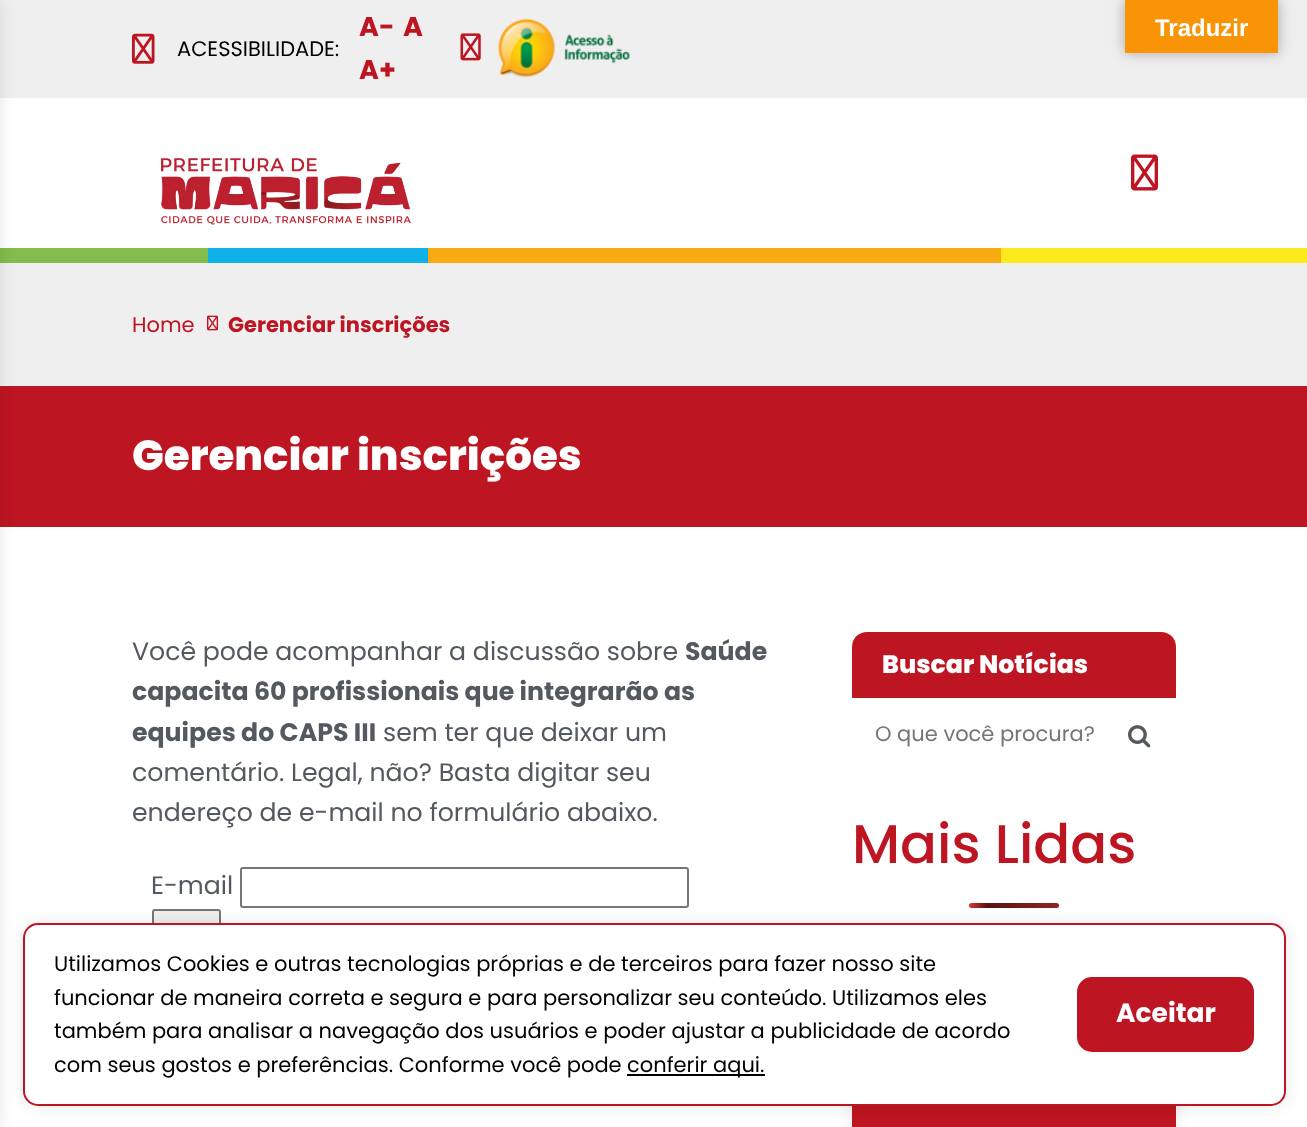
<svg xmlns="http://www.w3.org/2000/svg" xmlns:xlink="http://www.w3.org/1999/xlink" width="1307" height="1127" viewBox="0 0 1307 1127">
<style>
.cls-1{font:21px Poppins;fill:#000000}
.cls-2{font:bold 27px Poppins;fill:#be1522}
.cls-3{font:21px Poppins;fill:#be1522}
.cls-4{font:bold 21px Poppins;fill:#be1522}
.cls-5{font:800 42px Poppins;fill:#ffffff}
.cls-6{font:25.2px Poppins;fill:#54595f}
.cls-7{font:bold 25.2px Poppins;fill:#54595f}
.cls-8{font:800 25.2px Poppins;fill:#ffffff}
.cls-9{font:21px Poppins;fill:#757575}
.cls-10{font:500 54.5px Poppins;fill:#be1522}
.cls-11{font:bold 24px Liberation Sans;fill:#ffffff}
.cls-12{font:bold 26.5px Poppins;fill:#ffffff}
</style>
<defs>
<linearGradient id="g1" gradientUnits="userSpaceOnUse" x1="969" y1="905" x2="1149" y2="905"><stop offset="0" stop-color="#dd3737"/><stop offset="0.1" stop-color="#571313"/><stop offset="1" stop-color="#dd3737"/></linearGradient>
</defs>
<rect width="100%" height="100%" fill="#efeff0"/>
<rect fill="#ffffff" x="0" y="98" width="1307" height="150"/>
<rect fill="#83bd4c" x="0" y="248" width="208" height="15"/>
<rect fill="#be1522" x="0" y="386" width="1307" height="141"/>
<rect fill="#ffffff" x="0" y="527" width="1307" height="600"/>
<rect fill="#000000" fill-opacity="0.1" filter="blur(7.5px)" x="-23" y="0" width="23" height="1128"/>
<image xlink:href="image0.png" x="132" y="33" width="23" height="31"/>
<image xlink:href="image1.png" x="460" y="33" width="21" height="28"/>
<image xlink:href="image2.png" x="497" y="18" width="133" height="60"/>
<image xlink:href="image3.png" x="161" y="158" width="250" height="67"/>
<image xlink:href="image4.png" x="1131" y="154" width="27" height="37"/>
<rect fill="#00b2e8" x="427" y="248" width="1" height="15"/>
<rect fill="#0eb1e8" x="208" y="248" width="219" height="15"/>
<rect fill="#f8aa12" x="428" y="248" width="573" height="15"/>
<rect fill="#fcea1d" x="1001" y="248" width="306" height="15"/>
<image xlink:href="image5.png" x="207" y="315" width="12" height="16"/>
<rect fill="none" stroke="#767676" stroke-width="2" x="241" y="868" width="447" height="39" rx="2"/>
<rect fill="#efefef" stroke="#767676" stroke-width="2" x="153" y="910" width="67" height="37" rx="2"/>
<path fill="#be1522" d="M867 632H1161C1169.5 632 1176 638.5 1176 647V698H852V647C852 638.5 858.5 632 867 632Z"/>
<image xlink:href="image6.png" x="1128" y="725" width="23" height="23"/>
<rect fill="url(#g1)" x="969" y="903" width="90" height="5" rx="2.5"/>
<rect fill="#000000" fill-opacity="0.1" filter="blur(7.5px)" x="852" y="953" width="324" height="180"/>
<image xlink:href="image7.png" x="852" y="1106" width="324" height="21"/>
<rect fill="#000000" fill-opacity="0.3" filter="blur(7px)" x="1125" y="0" width="153" height="53"/>
<rect fill="#f89406" x="1125" y="0" width="153" height="53"/>
<rect fill="#000000" fill-opacity="0.1" filter="blur(7.5px)" x="23" y="923" width="1263" height="183" rx="15"/>
<rect fill="#ffffff" stroke="#be1522" stroke-width="2" x="24" y="924" width="1261" height="181" rx="14"/>
<rect fill="#000000" x="627" y="1074" width="138" height="2"/>
<rect fill="#be1522" stroke="#be1522" stroke-width="2" x="1078" y="978" width="175" height="73" rx="14"/>
<text class="cls-1" x="177" y="56">ACESSIBILIDADE:</text>
<text class="cls-2" x="359" y="36">A-</text>
<text class="cls-2" x="403" y="36">A</text>
<text class="cls-2" x="359" y="79">A+</text>
<text class="cls-3" x="132" y="332">Home</text>
<text class="cls-4" x="228" y="332">Gerenciar inscrições</text>
<text class="cls-5" x="132" y="470">Gerenciar inscrições</text>
<text class="cls-6" x="132" y="660">Você pode acompanhar a discussão sobre</text>
<text class="cls-7" x="685" y="660">Saúde</text>
<text class="cls-7"><tspan x="132" y="700">capacita 60 profissionais que integrarão as</tspan><tspan x="132" y="741">equipes do CAPS III</tspan></text>
<text class="cls-6" x="383" y="741">sem ter que deixar um</text>
<text class="cls-6"><tspan x="132" y="781">comentário. Legal, não? Basta digitar seu</tspan><tspan x="132" y="821">endereço de e-mail no formulário abaixo.</tspan></text>
<text class="cls-6" x="151" y="894">E-mail</text>
<text class="cls-8" x="882" y="673">Buscar Notícias</text>
<text class="cls-9" x="875" y="741">O que você procura?</text>
<text class="cls-10" x="852" y="863">Mais Lidas</text>
<text class="cls-11" x="1155" y="36">Traduzir</text>
<text class="cls-1"><tspan x="54" y="971">Utilizamos Cookies e outras tecnologias próprias e de terceiros para fazer nosso site</tspan><tspan x="54" y="1005">funcionar de maneira correta e segura e para personalizar seu conteúdo. Utilizamos eles</tspan><tspan x="54" y="1038">também para analisar a navegação dos usuários e poder ajustar a publicidade de acordo</tspan><tspan x="54" y="1072">com seus gostos e preferências. Conforme você pode</tspan></text>
<text class="cls-1" x="627" y="1072">conferir aqui.</text>
<text class="cls-12" x="1116" y="1022">Aceitar</text>
</svg>
